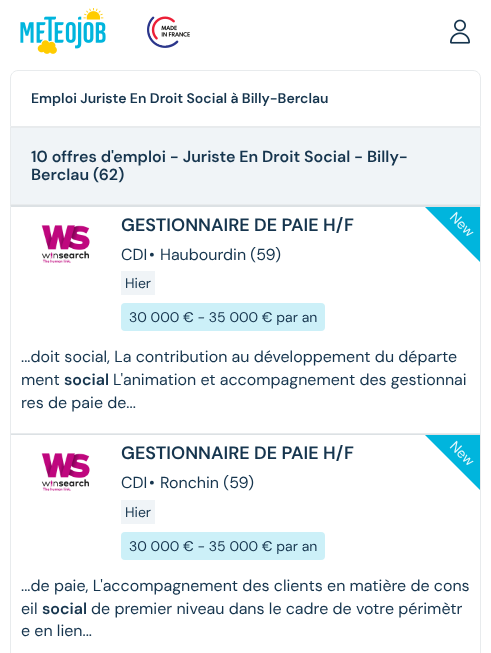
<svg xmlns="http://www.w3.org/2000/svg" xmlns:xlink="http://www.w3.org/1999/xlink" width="491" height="653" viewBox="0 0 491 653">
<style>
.cls-1{font:600 14px DM Sans;fill:#16354e}
.cls-2{font:600 16px 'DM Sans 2';fill:#16354e}
.cls-3{font:600 18px 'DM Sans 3';fill:#16354e}
.cls-4{font:16px DM Sans;fill:#16354e}
.cls-5{font:14px 'DM Sans 2';fill:#16354e}
.cls-6{font:14px 'DM Sans 2';fill:#e6f8fc}
</style>
<rect width="100%" height="100%" fill="#ffffff"/>
<image xlink:href="image0.png" x="20" y="8" width="86" height="46"/>
<image xlink:href="image1.png" x="147" y="16" width="43" height="32"/>
<image xlink:href="image2.png" x="450" y="19" width="20" height="25"/>
<path fill="none" stroke="#e8ebed" d="M18 70.5H473C477 70.5 480.5 74 480.5 78V126.5H10.5V78C10.5 74 14 70.5 18 70.5Z"/>
<rect fill="#f0f4f7" stroke="#e8ebed" x="10.5" y="127.5" width="470" height="77"/>
<path fill="#dce1e4" d="M10 205H481L480 207H11Z"/>
<path fill="#e8ebed" d="M481 205V434L480 433V207Z"/>
<rect fill="#e8ebed" x="10" y="433" width="471" height="1"/>
<path fill="#e8ebed" d="M10 434V205L11 207V433Z"/>
<image xlink:href="image3.png" x="41" y="225" width="49" height="38"/>
<rect fill="#f0f4f7" x="121" y="271" width="34" height="24"/>
<rect fill="#ccf0f8" x="121" y="303" width="204" height="28" rx="4"/>
<path fill="#00b5dd" d="M480 207V262L425 207Z"/>
<rect fill="#dce1e4" x="10" y="434" width="471" height="1"/>
<rect fill="#e8ebed" x="480" y="434" width="1" height="219"/>
<rect fill="#e8ebed" x="10" y="434" width="1" height="219"/>
<image xlink:href="image3.png" x="41" y="453" width="49" height="38"/>
<rect fill="#f0f4f7" x="121" y="500" width="34" height="24"/>
<rect fill="#ccf0f8" x="121" y="532" width="204" height="28" rx="4"/>
<path fill="#00b5dd" d="M480 435V490L425 435Z"/>
<text class="cls-1" x="31" y="103">Emploi Juriste En Droit Social à Billy-Berclau</text>
<text class="cls-2"><tspan x="31" y="162">10 offres d'emploi - Juriste En Droit Social - Billy-</tspan><tspan x="31" y="180">Berclau (62)</tspan></text>
<text class="cls-3" x="121" y="231">GESTIONNAIRE DE PAIE H/F</text>
<text class="cls-4" x="121" y="260">CDI</text>
<text class="cls-4" x="149" y="260">•</text>
<text class="cls-4" x="160" y="260">Haubourdin (59)</text>
<text class="cls-5" x="125" y="288">Hier</text>
<text class="cls-5" x="129" y="322">30 000 € - 35 000 € par an</text>
<text class="cls-6" x="449" y="218" transform="rotate(45 449 218)">New</text>
<text class="cls-4"><tspan x="21" y="362">...doit social, La contribution au développement du départe</tspan><tspan x="21" y="385">ment</tspan></text>
<text class="cls-2" x="64" y="385">social</text>
<text class="cls-4" x="113" y="385">L'animation et accompagnement des gestionnai</text>
<text class="cls-4" x="21" y="408">res de paie de...</text>
<text class="cls-3" x="121" y="459">GESTIONNAIRE DE PAIE H/F</text>
<text class="cls-4" x="121" y="488">CDI</text>
<text class="cls-4" x="149" y="488">•</text>
<text class="cls-4" x="160" y="488">Ronchin (59)</text>
<text class="cls-5" x="125" y="517">Hier</text>
<text class="cls-5" x="129" y="551">30 000 € - 35 000 € par an</text>
<text class="cls-6" x="449" y="447" transform="rotate(45 449 447)">New</text>
<text class="cls-4"><tspan x="21" y="591">...de paie, L'accompagnement des clients en matière de cons</tspan><tspan x="21" y="614">eil</tspan></text>
<text class="cls-2" x="42" y="614">social</text>
<text class="cls-4" x="91" y="614">de premier niveau dans le cadre de votre périmètr</text>
<text class="cls-4" x="21" y="636">e en lien...</text>
</svg>
